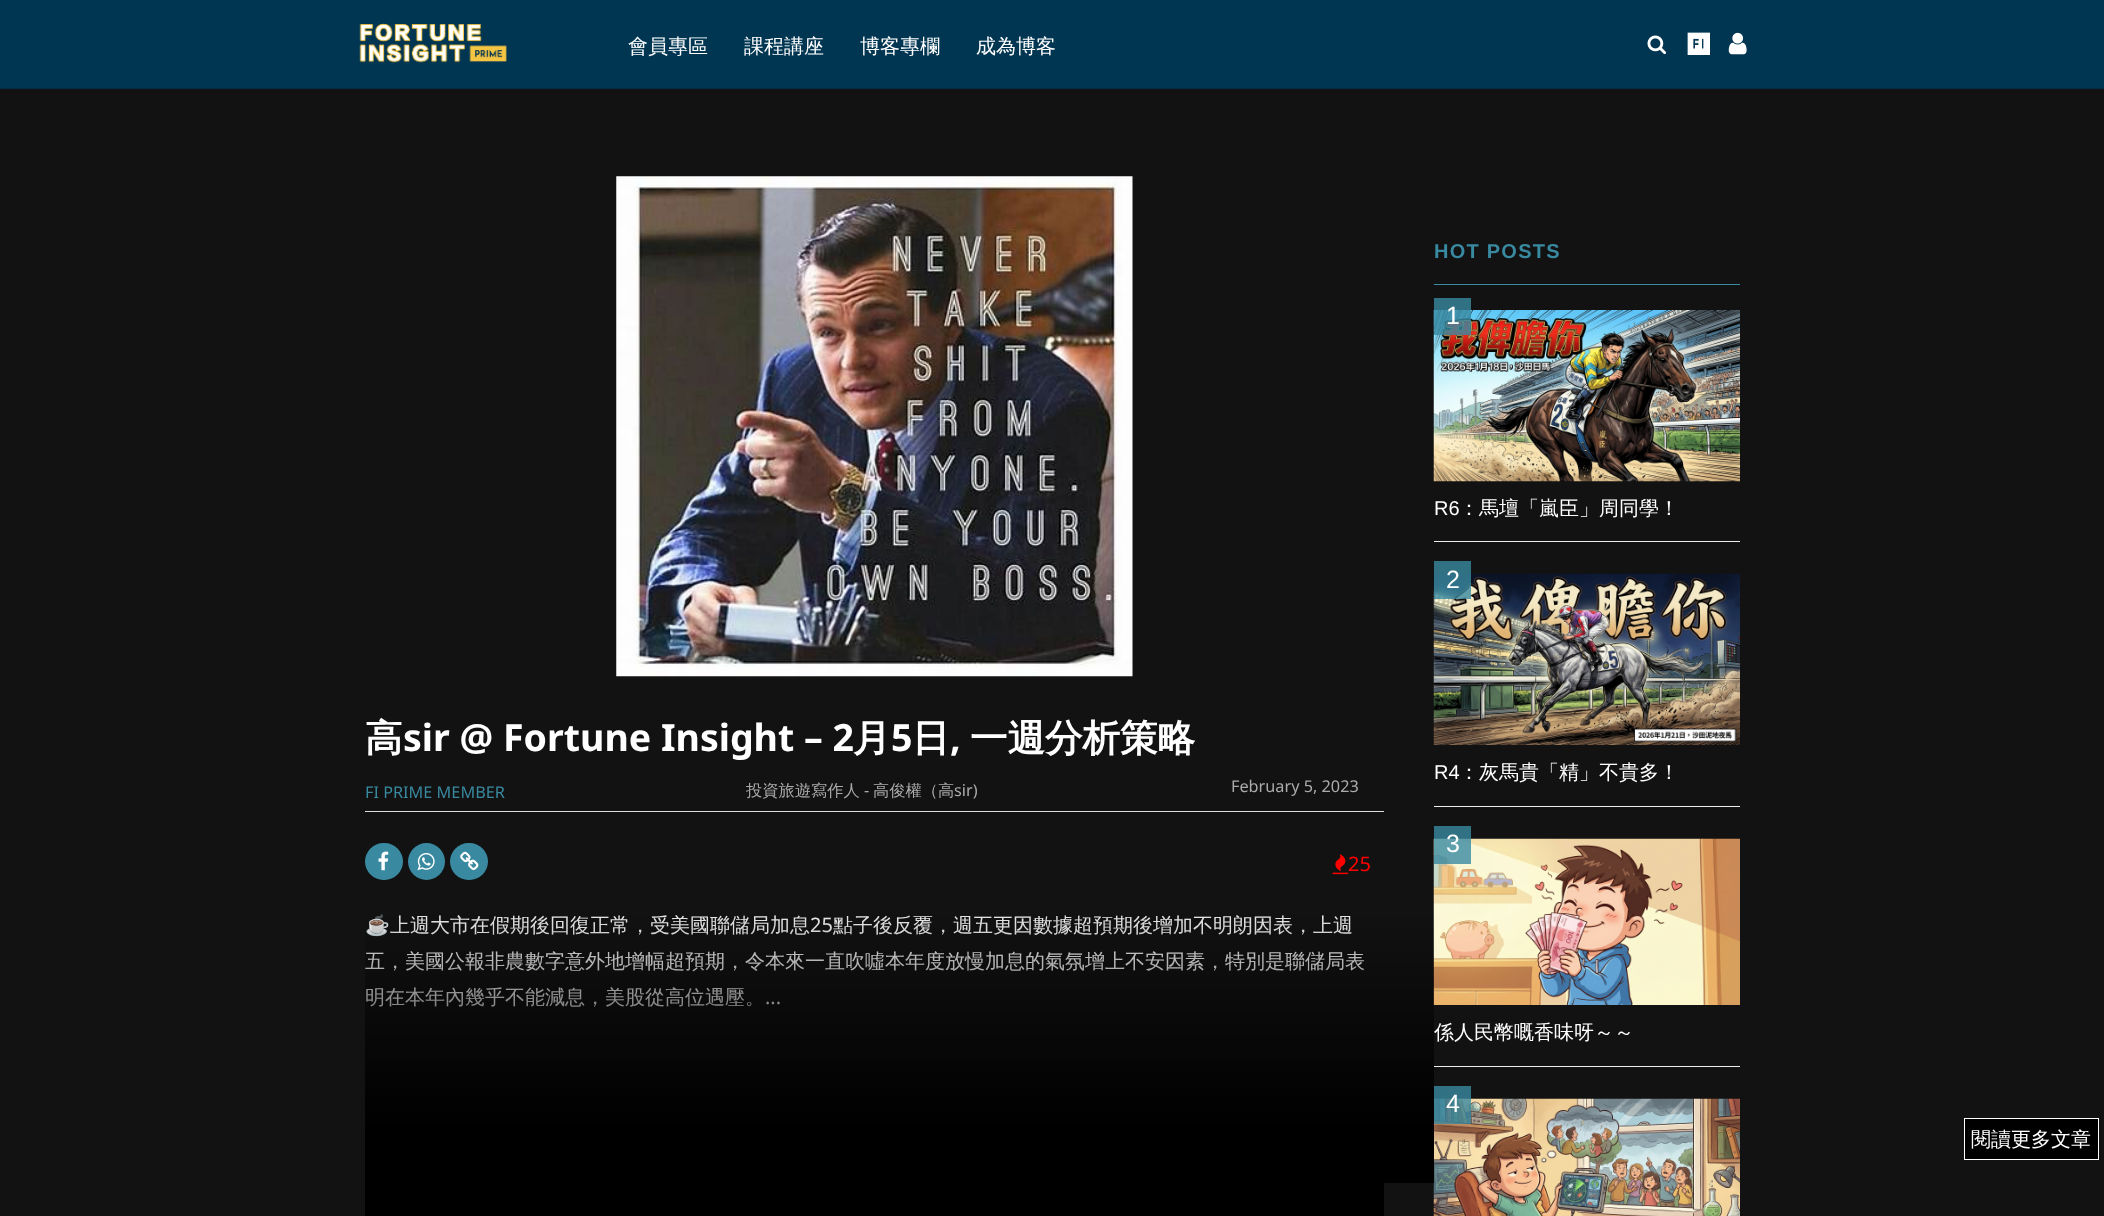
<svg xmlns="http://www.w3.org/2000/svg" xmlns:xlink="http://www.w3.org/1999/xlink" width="2104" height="1216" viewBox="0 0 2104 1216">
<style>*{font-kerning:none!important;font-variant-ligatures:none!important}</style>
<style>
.cls-1{font:500 20px WenQuanYi Zen Hei;fill:#ffffff}
.cls-2{font:bold 20px Liberation Sans;letter-spacing:1.25px;fill:#398aa1}
.cls-3{font:25px Liberation Sans;fill:#ffffff}
.cls-4{font:20px Liberation Sans;fill:#ffffff}
.cls-5{font:bold 37.5px WenQuanYi Zen Hei;fill:#ffffff}
.cls-6{font:bold 37.5px Noto Sans;fill:#ffffff}
.cls-7{font:16.25px Noto Sans;fill:#398aa1}
.cls-8{font:500 16.25px WenQuanYi Zen Hei;fill:#ababab}
.cls-9{font:16.25px Noto Sans;fill:#ababab}
.cls-10{font:20px Noto Sans;fill:#ff0000}
.cls-11{font:20px Noto Color Emoji;fill:#eeeeee}
.cls-12{font:500 20px WenQuanYi Zen Hei;fill:#eeeeee}
.cls-13{font:20px Noto Sans;fill:#eeeeee}
</style>
<defs>
<linearGradient id="g1" gradientUnits="userSpaceOnUse" x1="899" y1="908" x2="899" y2="1183"><stop offset="0" stop-color="#000000" stop-opacity="0"/><stop offset="0.8" stop-color="#000000"/><stop offset="1" stop-color="#000000"/></linearGradient>
</defs>
<rect width="100%" height="100%" fill="#121212"/>
<rect fill="#013652" x="0" y="0" width="2104" height="88"/>
<rect fill="#012e46" x="0" y="88" width="2104" height="1"/>
<image xlink:href="image0.png" x="359" y="23" width="148" height="40"/>
<image xlink:href="image1.png" x="1647" y="35" width="20" height="20"/>
<image xlink:href="image2.png" x="1687" y="32" width="23" height="23"/>
<image xlink:href="image3.png" x="1728" y="32" width="19" height="23"/>
<rect fill="#398aa1" x="1434" y="284" width="306" height="1"/>
<rect fill="#ededed" x="1434" y="541" width="306" height="1"/>
<image xlink:href="image4.png" x="1433" y="310" width="307" height="172"/>
<rect fill="#398aa1" fill-opacity="0.8" x="1434" y="298" width="37" height="37"/>
<rect fill="#ededed" x="1434" y="806" width="306" height="1"/>
<image xlink:href="image5.png" x="1433" y="573" width="307" height="172"/>
<rect fill="#398aa1" fill-opacity="0.8" x="1434" y="561" width="37" height="38"/>
<rect fill="#ededed" x="1434" y="1066" width="306" height="1"/>
<image xlink:href="image6.png" x="1433" y="838" width="307" height="167"/>
<rect fill="#398aa1" fill-opacity="0.8" x="1434" y="826" width="37" height="38"/>
<image xlink:href="image7.png" x="1433" y="1098" width="307" height="118"/>
<rect fill="#398aa1" fill-opacity="0.8" x="1434" y="1086" width="37" height="38"/>
<image xlink:href="image8.png" x="616" y="176" width="517" height="501"/>
<rect fill="#dddddd" x="365" y="811" width="1019" height="1"/>
<rect fill="#398aa1" x="365" y="843" width="38" height="37" rx="18.5"/>
<image xlink:href="image9.png" x="378" y="851" width="11" height="20"/>
<circle fill="#398aa1" cx="426.5" cy="861.5" r="18.5"/>
<image xlink:href="image10.png" x="417" y="853" width="18" height="18"/>
<rect fill="#398aa1" x="450" y="843" width="38" height="37" rx="18.5"/>
<image xlink:href="image11.png" x="460" y="851" width="19" height="19"/>
<image xlink:href="image12.png" x="1332" y="854" width="17" height="21"/>
<rect fill="#000000" x="365" y="1183" width="1019" height="33"/>
<rect fill="#000000" stroke="#ffffff" x="1964.5" y="1118.5" width="134" height="41"/>
<text class="cls-1" x="628" y="53">會員專區</text>
<text class="cls-1" x="744" y="53">課程講座</text>
<text class="cls-1" x="860" y="53">博客專欄</text>
<text class="cls-1" x="976" y="53">成為博客</text>
<text class="cls-2" x="1434" y="258">HOT POSTS</text>
<text class="cls-3" x="1446" y="324">1</text>
<text class="cls-4" x="1434" y="515">R6</text>
<text class="cls-1" x="1459" y="515">：馬壇「嵐臣」周同學！</text>
<text class="cls-3" x="1446" y="588">2</text>
<text class="cls-4" x="1434" y="779">R4</text>
<text class="cls-1" x="1459" y="779">：灰馬貴「精」不貴多！</text>
<text class="cls-3" x="1446" y="852">3</text>
<text class="cls-1" x="1434" y="1039">係人民幣嘅香味呀～～</text>
<text class="cls-3" x="1446" y="1112">4</text>
<text class="cls-5" x="365" y="751">高</text>
<text class="cls-6" x="403" y="751">sir @ Fortune Insight – 2</text>
<text class="cls-5" x="853" y="751">月</text>
<text class="cls-6" x="891" y="751">5</text>
<text class="cls-5" x="912" y="751">日</text>
<text class="cls-6" x="950" y="751">,</text>
<text class="cls-5" x="970" y="751">一週分析策略</text>
<text class="cls-7" x="365" y="798">FI PRIME MEMBER</text>
<text class="cls-8" x="746" y="796">投資旅遊寫作人</text>
<text class="cls-9" x="864" y="796">-</text>
<text class="cls-8" x="873" y="796">高俊權（高</text>
<text class="cls-9" x="954" y="796">sir)</text>
<text class="cls-9" x="1231" y="792">February 5, 2023</text>
<text class="cls-10" x="1348" y="871">25</text>
<text class="cls-11" x="365" y="932">☕</text>
<text class="cls-12" x="390" y="932">上週大市在假期後回復正常，受美國聯儲局加息</text>
<text class="cls-13" x="810" y="932">25</text>
<text class="cls-12" x="833" y="932">點子後反覆，週五更因數據超預期後增加不明朗因表，上週</text>
<text class="cls-12"><tspan x="365" y="968">五，美國公報非農數字意外地增幅超預期，令本來一直吹噓本年度放慢加息的氣氛增上不安因素，特別是聯儲局表</tspan><tspan x="365" y="1004">明在本年內幾乎不能減息，美股從高位遇壓。</tspan></text>
<text class="cls-13" x="765" y="1004">...</text>
<rect fill="url(#g1)" x="365" y="914" width="1069" height="269"/>
<text class="cls-1" x="1971" y="1146">閱讀更多文章</text>
</svg>
